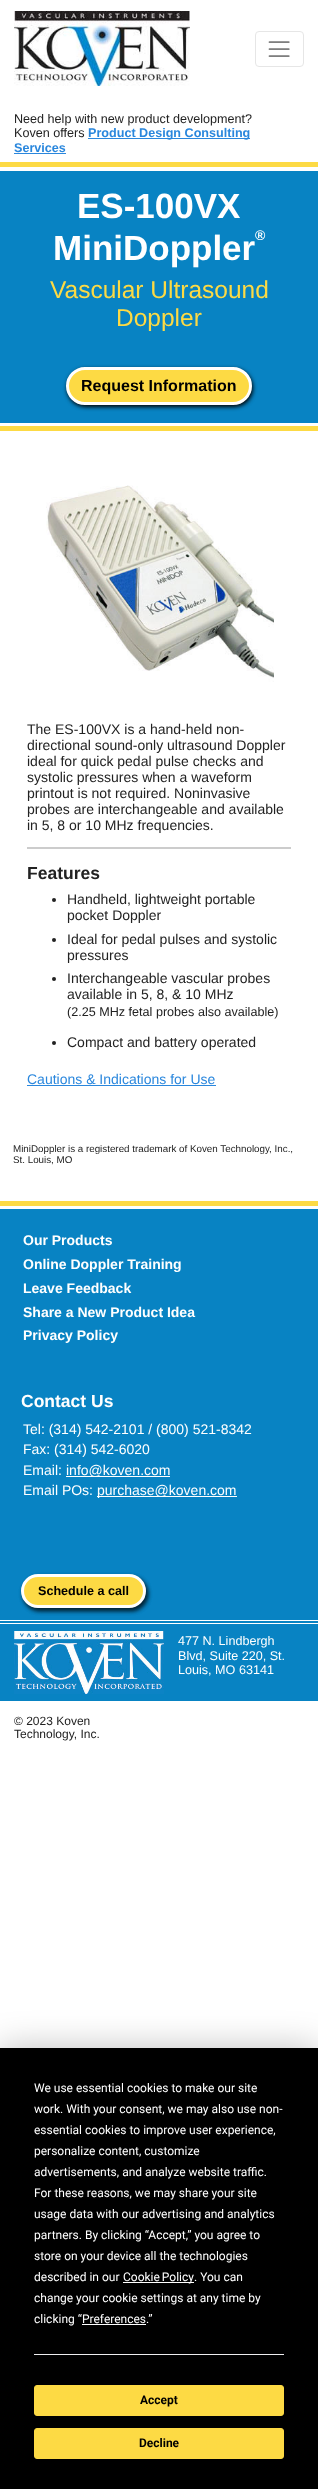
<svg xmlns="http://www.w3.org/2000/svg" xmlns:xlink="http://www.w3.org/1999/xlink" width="318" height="2489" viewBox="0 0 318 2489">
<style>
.cls-1{font:12.6px Liberation Sans;fill:#222222}
.cls-2{font:bold 12.6px Liberation Sans;fill:#2a87dd}
.cls-3{font:bold 35px Liberation Sans;fill:#ffffff}
.cls-4{font:bold 14px Liberation Sans;fill:#ffffff}
.cls-5{font:24.5px Liberation Sans;fill:#fdda44}
.cls-6{font:bold 16px Liberation Sans;fill:#000000}
.cls-7{font:14px Liberation Sans;fill:#222222}
.cls-8{font:bold 17.5px Liberation Sans;fill:#222222}
.cls-9{font:14px Liberation Sans;fill:#2a87dd}
.cls-10{font:9.8px Liberation Sans;fill:#222222}
.cls-11{font:bold 17.5px Liberation Sans;fill:#ffffff}
.cls-12{font:14px Liberation Sans;fill:#ffffff}
.cls-13{font:bold 12.6px Liberation Sans;fill:#000000}
.cls-14{font:12.6px Liberation Sans;fill:#ffffff}
.cls-15{font:12px Liberation Sans;fill:#222222}
.cls-16{font:12px Roboto;fill:#ffffff}
.cls-17{font:bold 12px Roboto;fill:#000000}
</style>
<rect width="100%" height="100%" fill="#ffffff"/>
<image xlink:href="image0.png" x="14" y="11" width="176" height="75"/>
<rect fill="none" stroke="#e6e6e6" x="255.5" y="31.5" width="48" height="35" rx="3.5"/>
<image xlink:href="image1.png" x="268" y="41" width="22" height="16"/>
<rect fill="#2a87dd" x="88" y="138" width="162" height="1"/>
<rect fill="#2a87dd" x="14" y="153" width="52" height="1"/>
<rect fill="#fdda44" x="0" y="162" width="318" height="5"/>
<rect fill="#0883c3" x="0" y="171" width="318" height="252"/>
<rect fill="#000000" filter="blur(2px)" x="67" y="369" width="186" height="38" rx="19"/>
<rect fill="#fdda44" stroke="#ffffff" stroke-width="3" x="67.5" y="368.5" width="183" height="35" rx="17.5"/>
<rect fill="#fdda44" x="0" y="426" width="318" height="5"/>
<image xlink:href="image2.png" x="46" y="485" width="228" height="197"/>
<rect fill="#cccccc" x="27" y="847" width="264" height="2"/>
<circle fill="#222222" cx="54" cy="900" r="2"/>
<circle fill="#222222" cx="54" cy="940" r="2"/>
<circle fill="#222222" cx="54" cy="979" r="2"/>
<circle fill="#222222" cx="54" cy="1043" r="2"/>
<rect fill="#2a87dd" x="27" y="1085" width="189" height="1"/>
<rect fill="#fdda44" x="0" y="1201" width="318" height="5"/>
<rect fill="#0883c3" x="0" y="1209" width="318" height="411"/>
<rect fill="#ffffff" x="66" y="1476" width="104" height="1"/>
<rect fill="#ffffff" x="97" y="1496" width="140" height="1"/>
<rect fill="#000000" fill-opacity="0.5" filter="blur(2px)" x="23" y="1577" width="125" height="34" rx="17"/>
<rect fill="#000000" fill-opacity="0.5" filter="blur(2px)" x="23" y="1577" width="125" height="34" rx="17"/>
<rect fill="#fdda44" stroke="#ffffff" stroke-width="3" x="22.5" y="1575.5" width="122" height="31" rx="15.5"/>
<rect fill="#0883c3" x="0" y="1621" width="318" height="2"/>
<rect fill="#0883c3" x="0" y="1624" width="318" height="77"/>
<image xlink:href="image3.png" x="14" y="1631" width="150" height="63"/>
<rect fill="#000000" fill-opacity="0.25" filter="blur(17.5px)" x="0" y="2048" width="318" height="441"/>
<rect fill="#000000" x="0" y="2048" width="318" height="441"/>
<rect fill="#ffffff" x="123" y="2282" width="71" height="1"/>
<rect fill="#ffffff" x="82" y="2324" width="64" height="1"/>
<rect fill="#ededef" x="34" y="2354" width="250" height="1"/>
<rect fill="#fdda44" stroke="#fdda44" x="34.5" y="2385.5" width="249" height="30" rx="2.5"/>
<rect fill="#fdda44" stroke="#fdda44" x="34.5" y="2428.5" width="249" height="30" rx="2.5"/>
<text class="cls-1"><tspan x="14" y="123">Need help with new product development?</tspan><tspan x="14" y="137">Koven offers</tspan></text>
<text class="cls-2" x="88" y="137">Product Design Consulting</text>
<text class="cls-2" x="14" y="152">Services</text>
<text class="cls-3" x="77" y="218">ES-100VX</text>
<text class="cls-3" x="53" y="260">MiniDoppler</text>
<text class="cls-4" x="255" y="240">®</text>
<text class="cls-5" x="50" y="298">Vascular Ultrasound</text>
<text class="cls-5" x="116" y="326">Doppler</text>
<text class="cls-6" x="81" y="391">Request Information</text>
<text class="cls-7"><tspan x="27" y="734">The ES-100VX is a hand-held non-</tspan><tspan x="27" y="750">directional sound-only ultrasound Doppler</tspan><tspan x="27" y="766">ideal for quick pedal pulse checks and</tspan><tspan x="27" y="782">systolic pressures when a waveform</tspan><tspan x="27" y="798">printout is not required. Noninvasive</tspan><tspan x="27" y="814">probes are interchangeable and available</tspan><tspan x="27" y="830">in 5, 8 or 10 MHz frequencies.</tspan></text>
<text class="cls-8" x="27" y="879">Features</text>
<text class="cls-7"><tspan x="67" y="904">Handheld, lightweight portable</tspan><tspan x="67" y="920">pocket Doppler</tspan><tspan x="67" y="944">Ideal for pedal pulses and systolic</tspan><tspan x="67" y="960">pressures</tspan><tspan x="67" y="983">Interchangeable vascular probes</tspan><tspan x="67" y="999">available in 5, 8, &amp; 10 MHz</tspan></text>
<text class="cls-1" x="67" y="1016">(2.25 MHz fetal probes also available)</text>
<text class="cls-7" x="67" y="1047">Compact and battery operated</text>
<text class="cls-9" x="27" y="1084">Cautions &amp; Indications for Use</text>
<text class="cls-10"><tspan x="13" y="1152">MiniDoppler is a registered trademark of Koven Technology, Inc.,</tspan><tspan x="13" y="1163">St. Louis, MO</tspan></text>
<text class="cls-4"><tspan x="23" y="1245">Our Products</tspan><tspan x="23" y="1269">Online Doppler Training</tspan><tspan x="23" y="1293">Leave Feedback</tspan><tspan x="23" y="1317">Share a New Product Idea</tspan><tspan x="23" y="1340">Privacy Policy</tspan></text>
<text class="cls-11" x="21" y="1407">Contact Us</text>
<text class="cls-12"><tspan x="23" y="1434">Tel: (314) 542-2101 / (800) 521-8342</tspan><tspan x="23" y="1454">Fax: (314) 542-6020</tspan><tspan x="23" y="1475">Email:</tspan></text>
<text class="cls-12" x="66" y="1475">info@koven.com</text>
<text class="cls-12" x="23" y="1495">Email POs:</text>
<text class="cls-12" x="97" y="1495">purchase@koven.com</text>
<text class="cls-13" x="38" y="1595">Schedule a call</text>
<text class="cls-14"><tspan x="178" y="1645">477 N. Lindbergh</tspan><tspan x="178" y="1660">Blvd, Suite 220, St.</tspan><tspan x="178" y="1674">Louis, MO 63141</tspan></text>
<text class="cls-15"><tspan x="14" y="1725">© 2023 Koven</tspan><tspan x="14" y="1738">Technology, Inc.</tspan></text>
<text class="cls-16"><tspan x="34" y="2092">We use essential cookies to make our site</tspan><tspan x="34" y="2113">work. With your consent, we may also use non-</tspan><tspan x="34" y="2134">essential cookies to improve user experience,</tspan><tspan x="34" y="2155">personalize content, customize</tspan><tspan x="34" y="2176">advertisements, and analyze website traffic.</tspan><tspan x="34" y="2197">For these reasons, we may share your site</tspan><tspan x="34" y="2218">usage data with our advertising and analytics</tspan><tspan x="34" y="2239">partners. By clicking “Accept,” you agree to</tspan><tspan x="34" y="2260">store on your device all the technologies</tspan><tspan x="34" y="2281">described in our</tspan></text>
<text class="cls-16" x="123" y="2281" word-spacing="-1">Cookie Policy</text>
<text class="cls-16" x="194" y="2281">. You can</text>
<text class="cls-16"><tspan x="34" y="2302">change your cookie settings at any time by</tspan><tspan x="34" y="2323">clicking “Preferences.”</tspan></text>
<text class="cls-17" x="140" y="2404">Accept</text>
<text class="cls-17" x="139" y="2447">Decline</text>
</svg>
